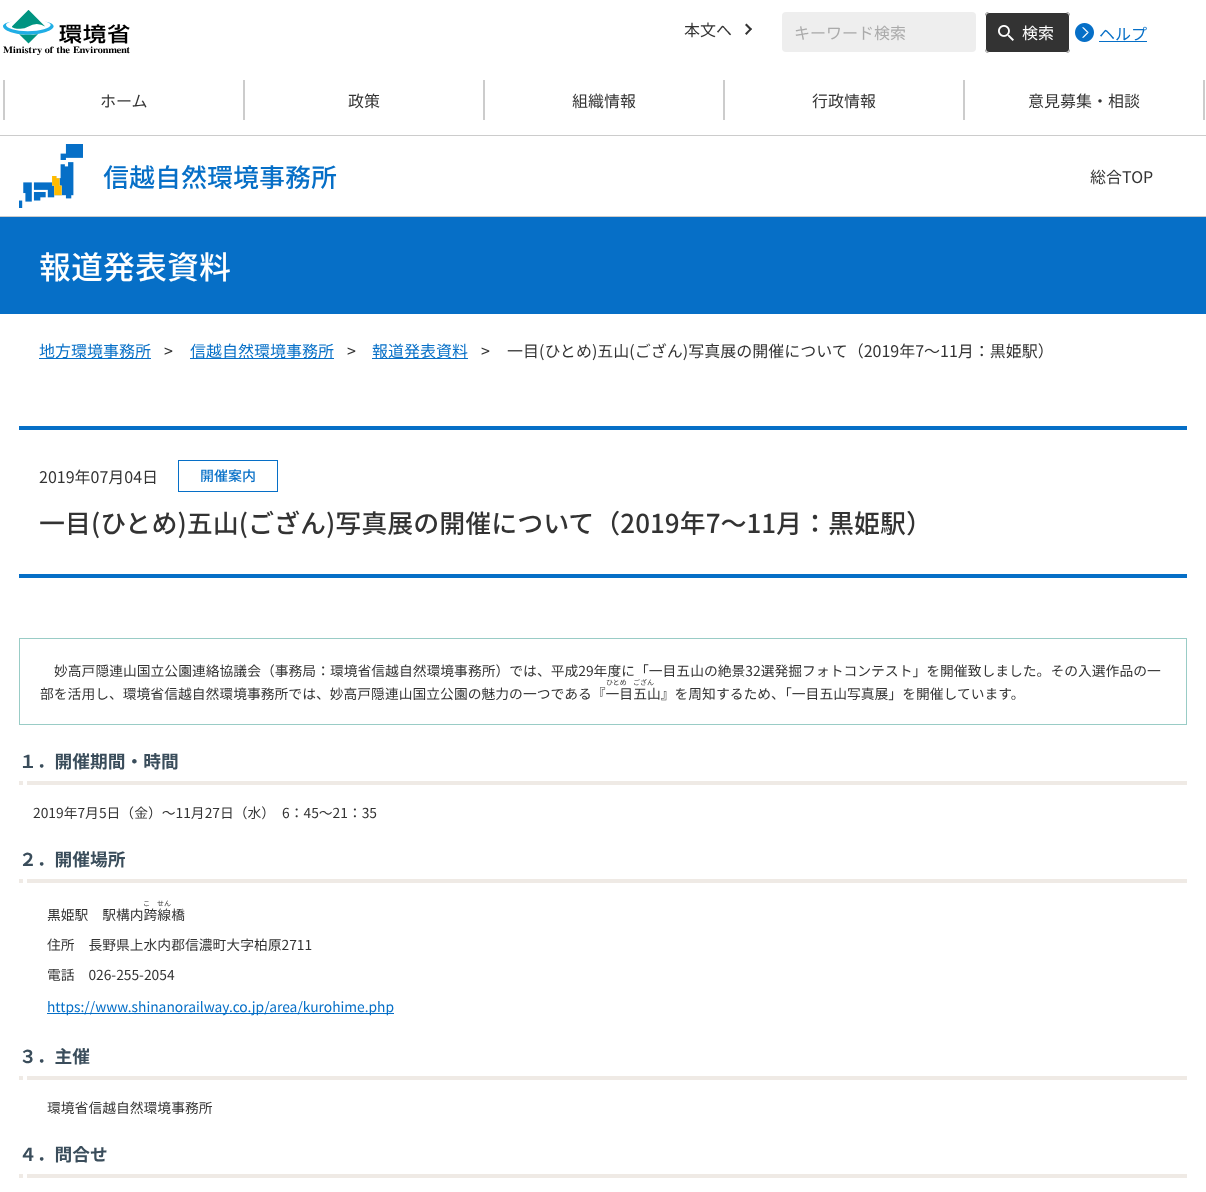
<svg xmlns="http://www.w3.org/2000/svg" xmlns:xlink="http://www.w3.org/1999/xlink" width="1206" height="1192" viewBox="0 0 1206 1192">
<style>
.cls-1{font:16px Noto Sans CJK JP;fill:#333333}
.cls-2{font:16px Noto Sans CJK JP;fill:#aaaaaa}
.cls-3{font:16px Noto Sans CJK JP;fill:#ffffff}
.cls-4{font:16px Noto Sans CJK JP;fill:#066fc7}
.cls-5{font:500 26px Noto Sans CJK JP;fill:#066fc7}
.cls-6{font:500 32px Noto Sans CJK JP;fill:#ffffff}
.cls-7{font:500 14px Noto Sans CJK JP;fill:#066fc7}
.cls-8{font:500 26px Noto Sans CJK JP;fill:#333333}
.cls-9{font:13.8px Noto Sans CJK JP;fill:#333333}
.cls-10{font:7px Noto Sans CJK JP;fill:#333333}
.cls-11{font:bold 17.75px Noto Sans CJK JP;fill:#3a4d5b}
.cls-12{font:13.8px Noto Sans CJK JP;fill:#066fc7}
</style>
<rect width="100%" height="100%" fill="#ffffff"/>
<image xlink:href="image0.png" x="3" y="10" width="127" height="45"/>
<path fill="#333333" d="M746.5 23.5L752 29L750.5 30.5L745 25Z"/>
<path fill="#333333" d="M750.5 28L752 29L746.5 35L745 33.5Z"/>
<rect fill="#eeeeee" x="782" y="12" width="194" height="40" rx="4"/>
<rect fill="#333333" x="985" y="12" width="85" height="41" rx="4"/>
<image xlink:href="image1.png" x="998" y="25" width="16" height="16"/>
<rect fill="none" stroke="#ffffff" x="985.5" y="12.5" width="84" height="40" rx="3.5"/>
<image xlink:href="image2.png" x="1075" y="23" width="19" height="19"/>
<rect fill="#066fc7" x="1099" y="41" width="48" height="1"/>
<rect fill="#cccccc" x="3" y="80" width="2" height="40"/>
<rect fill="#cccccc" x="243" y="80" width="2" height="40"/>
<rect fill="#cccccc" x="483" y="80" width="2" height="40"/>
<rect fill="#cccccc" x="723" y="80" width="2" height="40"/>
<rect fill="#cccccc" x="963" y="80" width="2" height="40"/>
<rect fill="#cccccc" x="1203" y="80" width="2" height="40"/>
<rect fill="#cccccc" x="0" y="135" width="1206" height="1"/>
<rect fill="#cccccc" x="0" y="216" width="1206" height="1"/>
<image xlink:href="image3.png" x="19" y="144" width="64" height="64"/>
<rect fill="#066fc7" x="0" y="217" width="1206" height="97"/>
<rect fill="#066fc7" x="39" y="358" width="112" height="1"/>
<rect fill="#066fc7" x="190" y="358" width="144" height="1"/>
<rect fill="#066fc7" x="372" y="358" width="96" height="1"/>
<rect fill="#066fc7" x="19" y="426" width="1168" height="4"/>
<rect fill="#066fc7" x="19" y="574" width="1168" height="4"/>
<rect fill="none" stroke="#066fc7" x="178.5" y="460.5" width="99" height="31"/>
<rect fill="none" stroke="#99ccc6" x="19.5" y="638.5" width="1167" height="86"/>
<rect fill="#efeae5" x="19" y="781" width="1168" height="4"/>
<rect fill="#ffffff" x="23" y="781" width="4" height="4"/>
<rect fill="#efeae5" x="19" y="879" width="1168" height="4"/>
<rect fill="#ffffff" x="23" y="879" width="4" height="4"/>
<rect fill="#066fc7" x="47" y="1013" width="347" height="1"/>
<rect fill="#efeae5" x="19" y="1076" width="1168" height="4"/>
<rect fill="#ffffff" x="23" y="1076" width="4" height="4"/>
<rect fill="#efeae5" x="19" y="1174" width="1168" height="4"/>
<rect fill="#ffffff" x="23" y="1174" width="4" height="4"/>
<text class="cls-1" x="684" y="36">本文へ</text>
<text class="cls-2" x="794" y="39">キーワード検索</text>
<text class="cls-3" x="1022" y="39">検索</text>
<text class="cls-4" x="1099" y="40">ヘルプ</text>
<text class="cls-1" x="100" y="107">ホーム</text>
<text class="cls-1" x="348" y="107">政策</text>
<text class="cls-1" x="572" y="107">組織情報</text>
<text class="cls-1" x="812" y="107">行政情報</text>
<text class="cls-1" x="1028" y="107">意見募集・相談</text>
<text class="cls-5" x="103" y="187">信越自然環境事務所</text>
<text class="cls-1" x="1090" y="183">総合TOP</text>
<text class="cls-6" x="39" y="279">報道発表資料</text>
<text class="cls-4" x="39" y="357">地方環境事務所</text>
<text class="cls-1" x="164" y="357">&gt;</text>
<text class="cls-4" x="190" y="357">信越自然環境事務所</text>
<text class="cls-1" x="347" y="357">&gt;</text>
<text class="cls-4" x="372" y="357">報道発表資料</text>
<text class="cls-1" x="481" y="357">&gt;</text>
<text class="cls-1" x="507" y="357">一目(ひとめ)五山(ござん)写真展の開催について（2019年7～11月：黒姫駅）</text>
<text class="cls-1" x="39" y="483">2019年07月04日</text>
<text class="cls-7" x="200" y="481">開催案内</text>
<text class="cls-8" x="39" y="533">一目(ひとめ)五山(ござん)写真展の開催について（2019年7～11月：黒姫駅）</text>
<text class="cls-9" x="54" y="676">妙高戸隠連山国立公園連絡協議会（事務局：環境省信越自然環境事務所）では、平成29年度に「一目五山の絶景32選発掘フォトコンテスト」を開催致しました。その入選作品の一</text>
<text class="cls-10" x="606" y="685">ひとめ</text>
<text class="cls-10" x="633" y="685">ござん</text>
<text class="cls-9" x="40" y="699">部を活用し、環境省信越自然環境事務所では、妙高戸隠連山国立公園の魅力の一つである『一目五山』を周知するため、「一目五山写真展」を開催しています。</text>
<text class="cls-11" x="19" y="768">１．開催期間・時間</text>
<text class="cls-9" x="33" y="818">2019年7月5日（金）～11月27日（水）　6：45～21：35</text>
<text class="cls-11" x="19" y="866">２．開催場所</text>
<text class="cls-10" x="143" y="906">こ</text>
<text class="cls-10" x="157" y="906">せん</text>
<text class="cls-9" x="47" y="920">黒姫駅　駅構内跨線橋</text>
<text class="cls-9" x="47" y="950">住所　長野県上水内郡信濃町大字柏原2711</text>
<text class="cls-9" x="47" y="980">電話　026-255-2054</text>
<text class="cls-12" x="47" y="1012">https://www.shinanorailway.co.jp/area/kurohime.php</text>
<text class="cls-11" x="19" y="1063">３．主催</text>
<text class="cls-9" x="47" y="1113">環境省信越自然環境事務所</text>
<text class="cls-11" x="19" y="1161">４．問合せ</text>
</svg>
